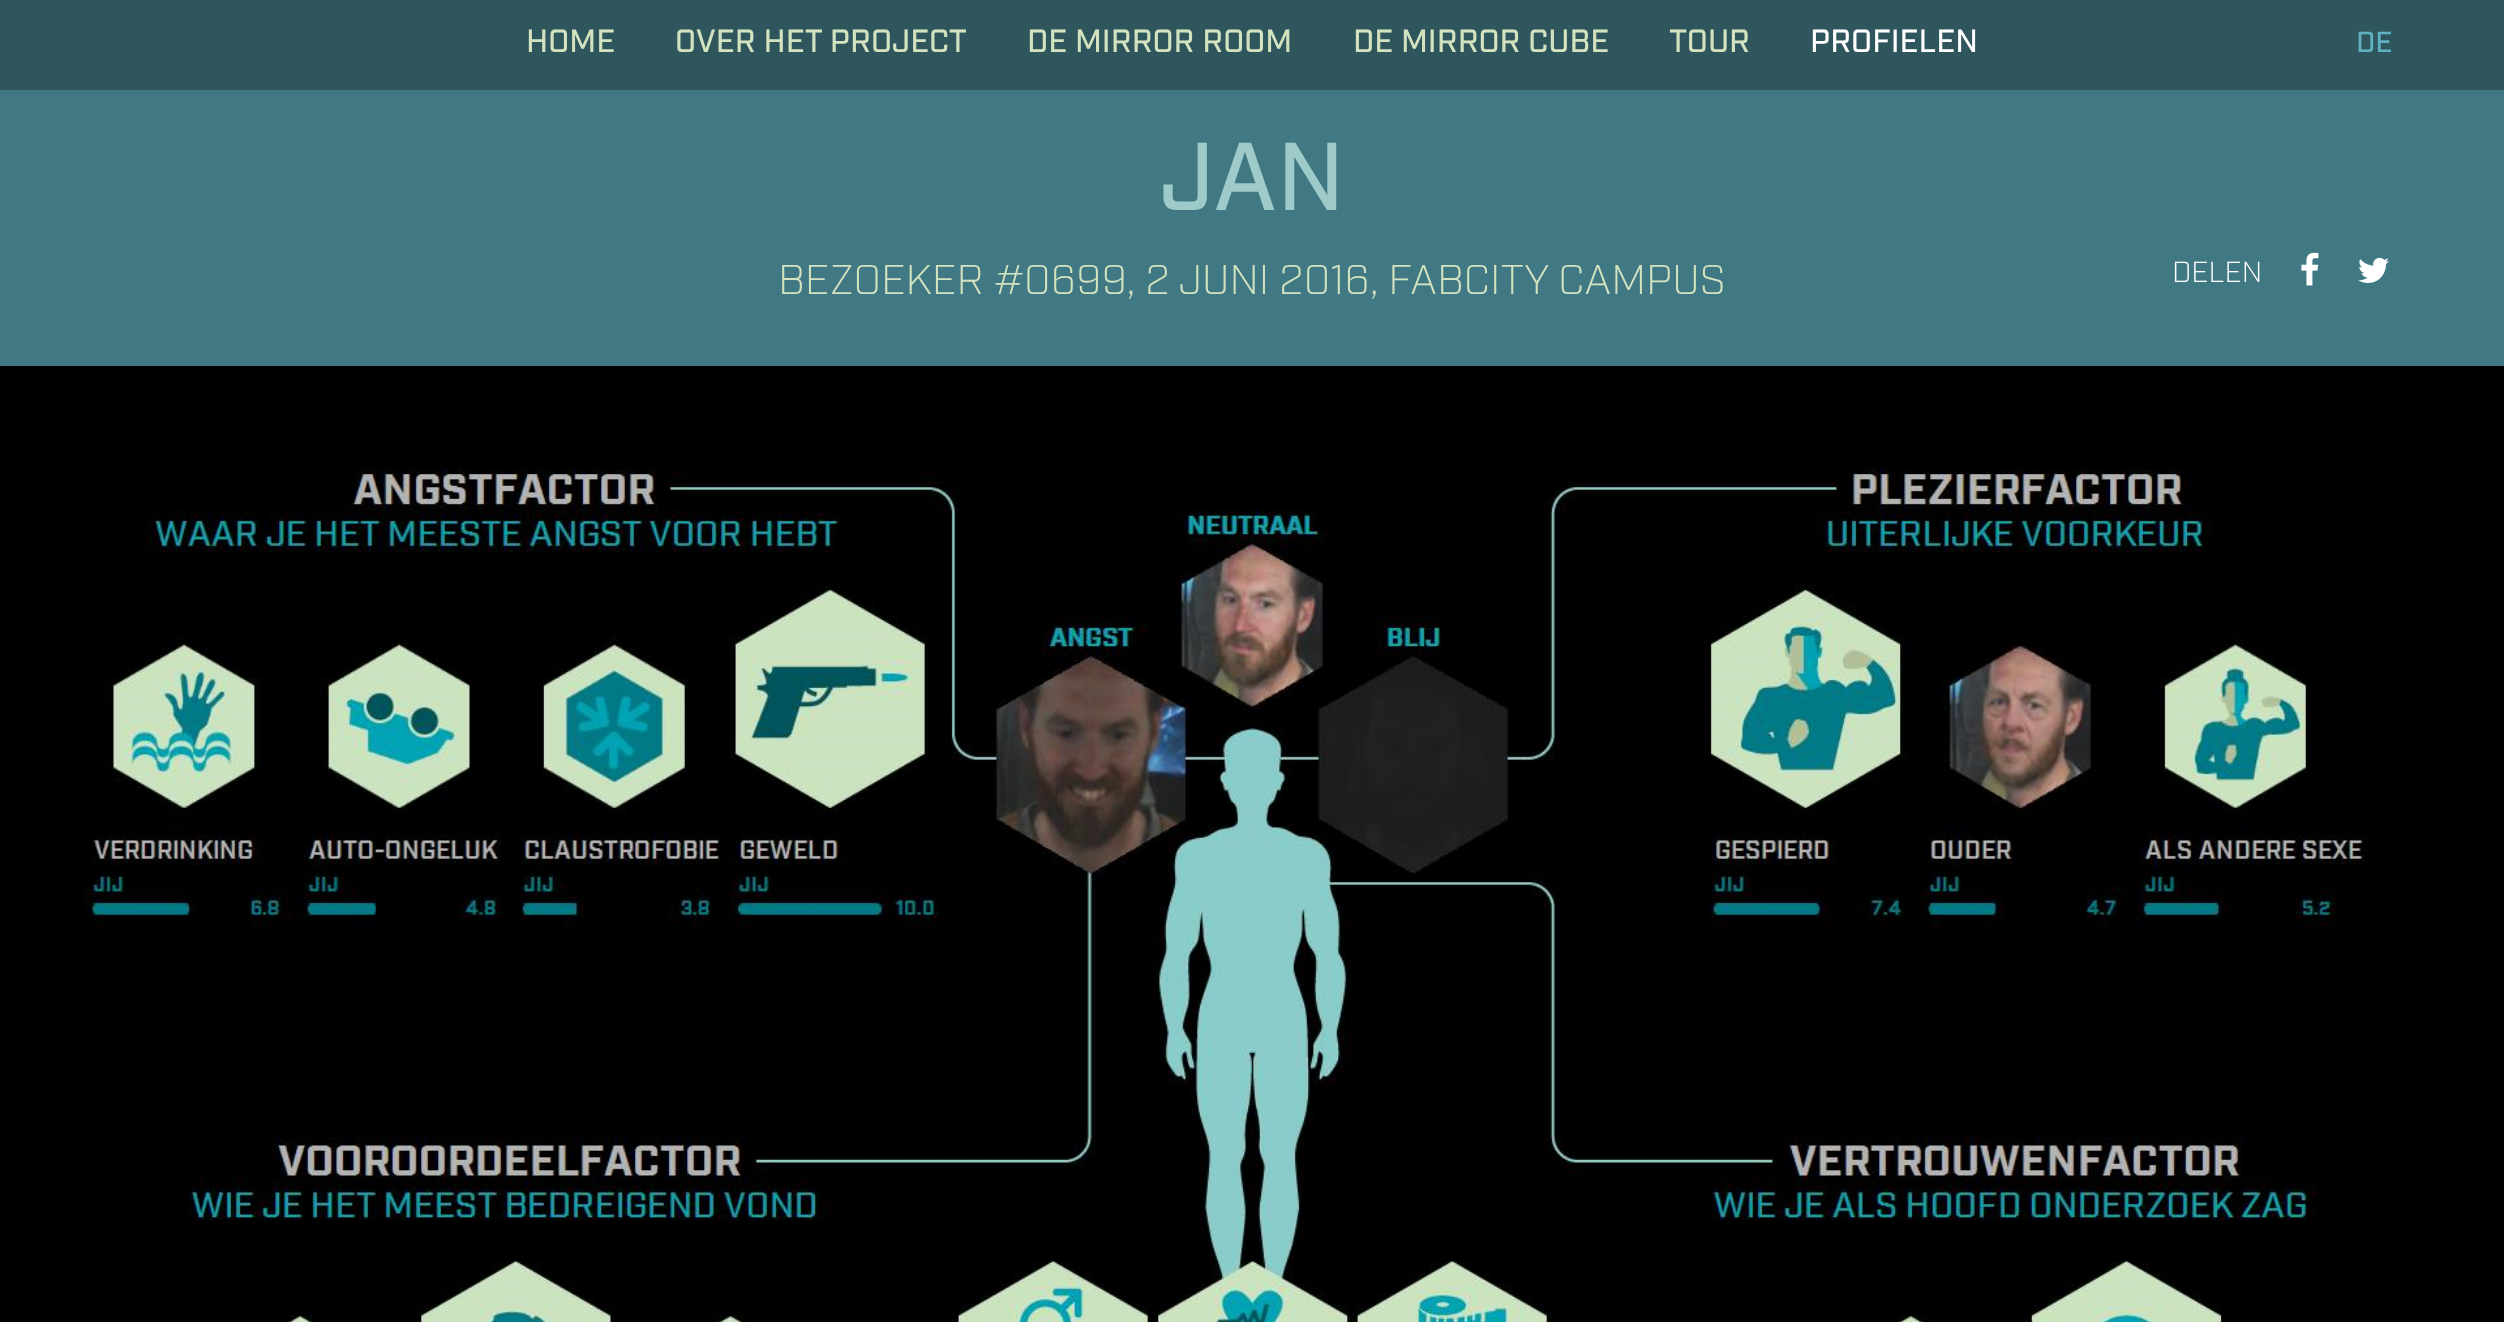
<svg xmlns="http://www.w3.org/2000/svg" xmlns:xlink="http://www.w3.org/1999/xlink" width="2504" height="1322" viewBox="0 0 2504 1322">
<style>
.cls-1{font:500 32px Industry;fill:#d3e2bf}
.cls-2{font:500 32px Industry;fill:#ffffff}
.cls-3{font:500 29px Industry;fill:#60b1c2}
.cls-4{font:500 96px Industry;fill:#9ecbc9}
.cls-5{font:300 41.6px Industry;fill:#d3e2bf}
.cls-6{font:300 29px Industry;fill:#ffffff}
</style>
<rect width="100%" height="100%" fill="#407983"/>
<rect fill="#2f565d" x="0" y="0" width="2504" height="90"/>
<image xlink:href="image0.png" x="2301" y="252" width="18" height="34"/>
<image xlink:href="image1.png" x="2358" y="257" width="31" height="26"/>
<rect fill="#000000" x="0" y="366" width="2504" height="956"/>
<image xlink:href="image2.png" x="83" y="468" width="2285" height="854"/>
<text class="cls-1" x="526" y="52">HOME</text>
<text class="cls-1" x="675" y="52">OVER HET PROJECT</text>
<text class="cls-1" x="1027" y="52">DE MIRROR ROOM</text>
<text class="cls-1" x="1353" y="52">DE MIRROR CUBE</text>
<text class="cls-1" x="1669" y="52">TOUR</text>
<text class="cls-2" x="1810" y="52">PROFIELEN</text>
<text class="cls-3" x="2356" y="52">DE</text>
<text class="cls-4" x="1160" y="210">JAN</text>
<text class="cls-5" x="778" y="294">BEZOEKER #0699, 2 JUNI 2016, FABCITY CAMPUS</text>
<text class="cls-6" x="2172" y="282">DELEN</text>
</svg>
